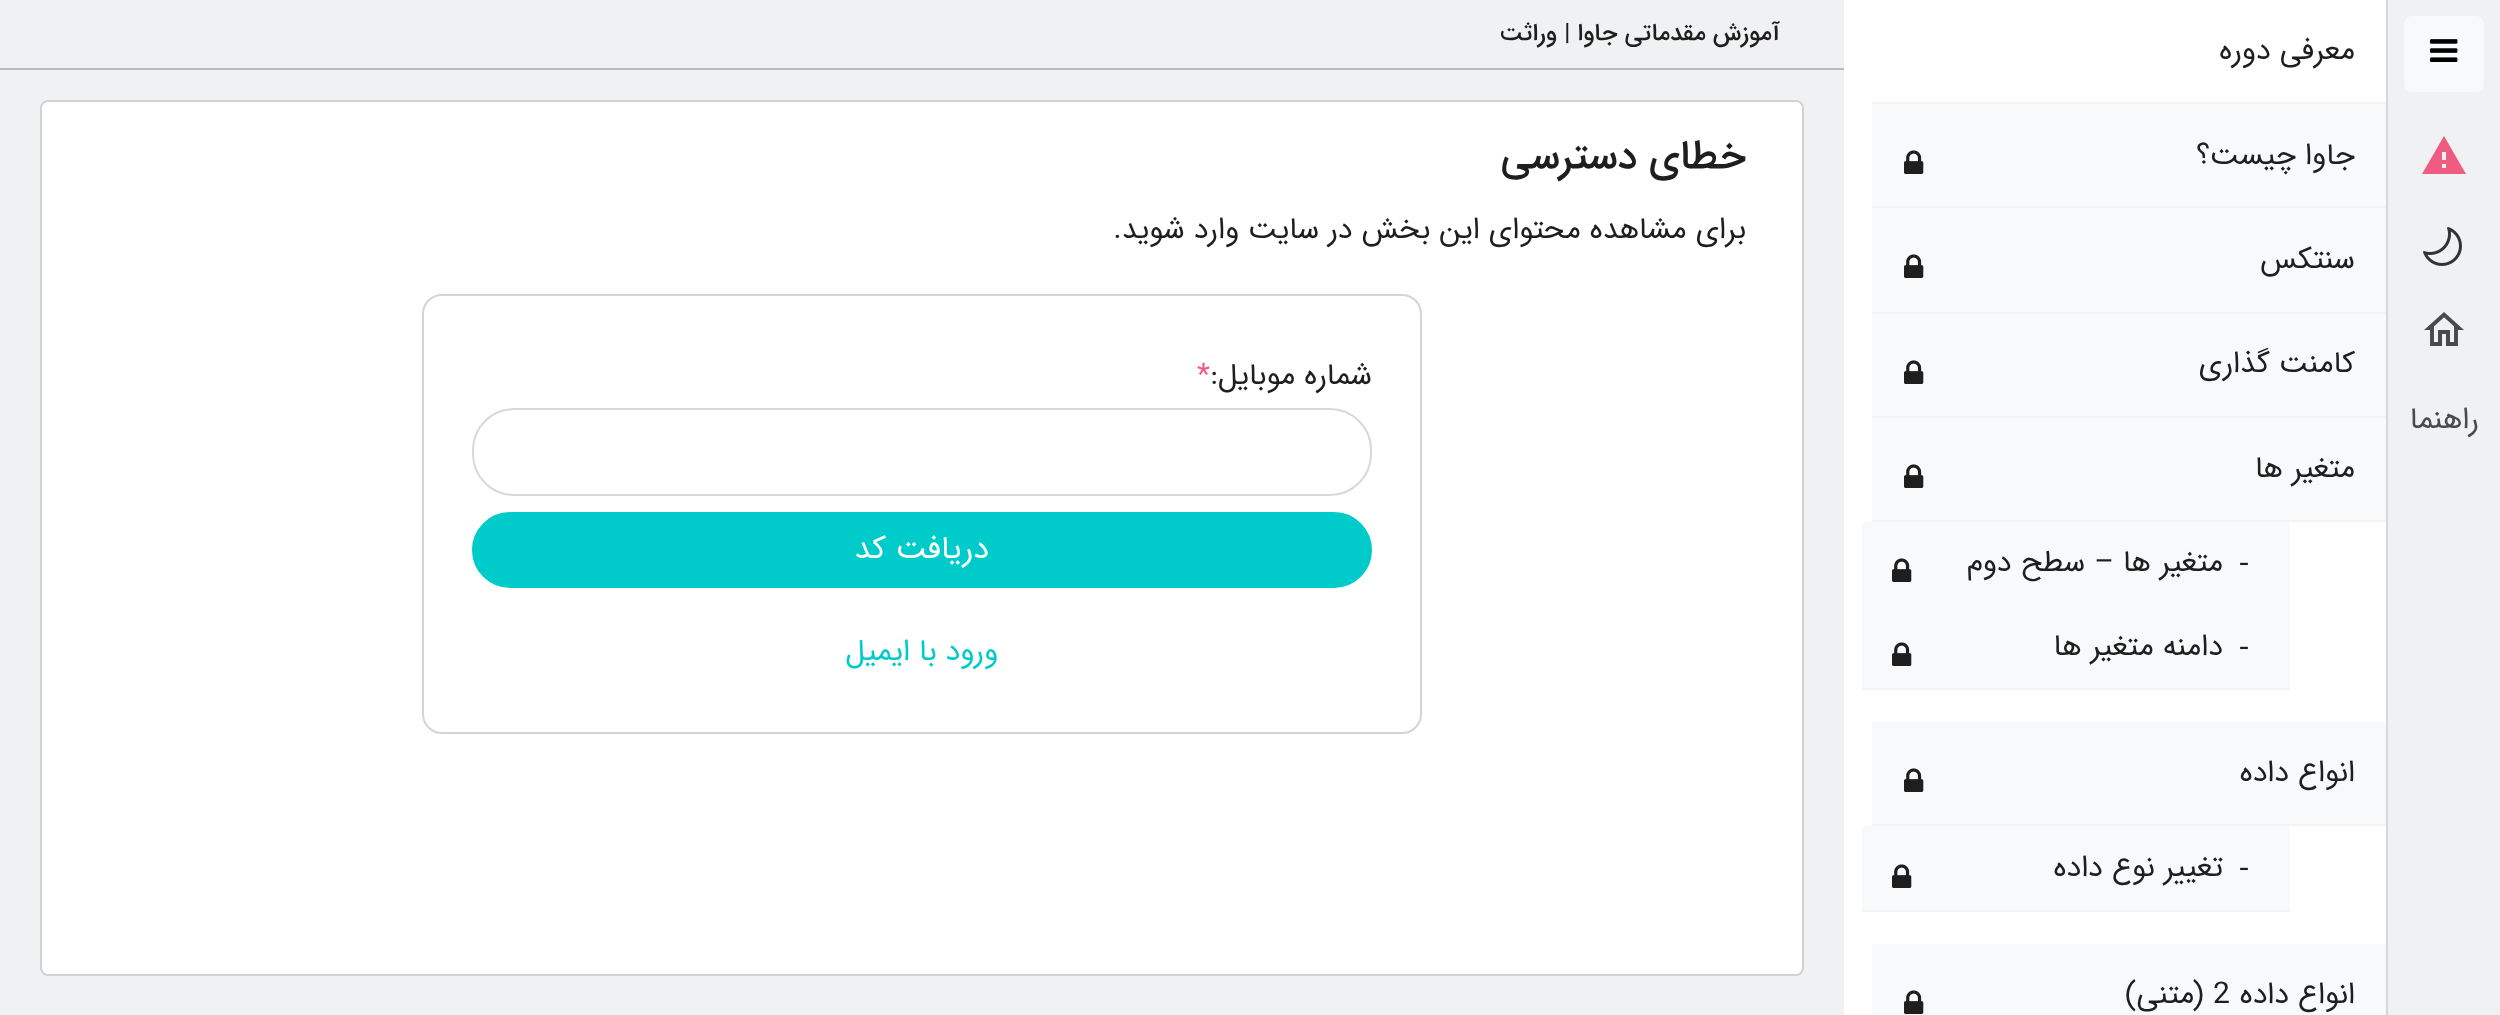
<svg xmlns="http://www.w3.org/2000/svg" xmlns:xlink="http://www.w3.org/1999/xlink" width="2500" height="1015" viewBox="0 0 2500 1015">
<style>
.cls-1{font:30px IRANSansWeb;direction:rtl;fill:#494a4a}
.cls-2{font:30px IRANSansWeb;direction:rtl;fill:#1e1e1e}
.cls-3{font:30px Liberation Serif;fill:#1e1e1e}
.cls-4{font:30px IRANSansWeb;fill:#1e1e1e}
.cls-5{font:500 24px IRANSansWeb;direction:rtl;fill:#1e1e1e}
.cls-6{font:500 40px IRANSansWeb;direction:rtl;fill:#1e1e1e}
.cls-7{font:30px IRANSansWeb;fill:#f05b82}
.cls-8{font:32px IRANSansWeb;direction:rtl;fill:#ffffff}
.cls-9{font:30px IRANSansWeb;direction:rtl;fill:#00cbcb}
</style>
<rect width="100%" height="100%" fill="#f0f1f2"/>
<rect fill="#d7d8d9" x="2386" y="0" width="2" height="1015"/>
<rect fill="#f8f9fa" x="2404" y="16" width="80" height="76" rx="8"/>
<image xlink:href="image0.png" x="2430" y="39" width="28" height="23"/>
<path fill="#f05b82" d="M2446 160H2442V152H2446ZM2446 168H2442V164H2446ZM2422 174H2466L2444 136Z"/>
<image xlink:href="image1.png" x="2423" y="227" width="39" height="39"/>
<image xlink:href="image2.png" x="2424" y="312" width="40" height="34"/>
<rect fill="#ffffff" x="1844" y="0" width="542" height="1015"/>
<rect fill="#f4f4f4" x="1872" y="102" width="514" height="2"/>
<rect fill="#f8f9fa" x="1872" y="104" width="514" height="102"/>
<rect fill="#f4f4f4" x="1872" y="206" width="514" height="2"/>
<image xlink:href="image3.png" x="1904" y="150" width="20" height="24"/>
<rect fill="#f8f9fa" x="1872" y="208" width="514" height="104"/>
<rect fill="#f4f4f4" x="1872" y="312" width="514" height="2"/>
<image xlink:href="image3.png" x="1904" y="254" width="20" height="24"/>
<rect fill="#f8f9fa" x="1872" y="314" width="514" height="102"/>
<rect fill="#f4f4f4" x="1872" y="416" width="514" height="2"/>
<image xlink:href="image3.png" x="1904" y="360" width="20" height="24"/>
<rect fill="#f8f9fa" x="1872" y="418" width="514" height="102"/>
<rect fill="#f4f4f4" x="1872" y="520" width="514" height="2"/>
<image xlink:href="image3.png" x="1904" y="464" width="20" height="24"/>
<rect fill="#f8f9fa" x="1862" y="522" width="428" height="166"/>
<rect fill="#f4f4f4" x="1862" y="688" width="428" height="2"/>
<image xlink:href="image3.png" x="1892" y="558" width="20" height="24"/>
<image xlink:href="image3.png" x="1892" y="642" width="20" height="24"/>
<rect fill="#f8f9fa" x="1872" y="722" width="514" height="102"/>
<rect fill="#f4f4f4" x="1872" y="824" width="514" height="2"/>
<image xlink:href="image3.png" x="1904" y="768" width="20" height="24"/>
<rect fill="#f8f9fa" x="1862" y="826" width="428" height="84"/>
<rect fill="#f4f4f4" x="1862" y="910" width="428" height="2"/>
<image xlink:href="image3.png" x="1892" y="864" width="20" height="24"/>
<rect fill="#f8f9fa" x="1872" y="944" width="514" height="71"/>
<image xlink:href="image3.png" x="1904" y="990" width="20" height="24"/>
<rect fill="#bbbbbb" x="0" y="68" width="1844" height="2"/>
<rect fill="#ffffff" x="40" y="100" width="1764" height="876" rx="8"/>
<rect fill="none" stroke="#000000" stroke-opacity="0.18" stroke-width="2" x="41" y="101" width="1762" height="874" rx="7"/>
<rect fill="none" stroke="#d4d4d4" stroke-width="2" x="423" y="295" width="998" height="438" rx="19"/>
<rect fill="none" stroke="#d7d8d9" stroke-width="2" x="473" y="409" width="898" height="86" rx="41"/>
<rect fill="#00cbcb" stroke="#00cbcb" stroke-width="2" x="473" y="513" width="898" height="74" rx="37"/>
<text class="cls-1" x="2479" y="428">راهنما</text>
<text class="cls-2" x="2355" y="59">معرفی دوره</text>
<text class="cls-2" x="2355" y="164">جاوا چیست؟</text>
<text class="cls-2" x="2355" y="268">سنتکس</text>
<text class="cls-2" x="2355" y="372">کامنت گذاری</text>
<text class="cls-2" x="2355" y="477">متغیر ها</text>
<text class="cls-3" x="2239" y="571">-</text>
<text class="cls-2" x="2223" y="571">متغیر ها – سطح دوم</text>
<text class="cls-3" x="2239" y="655">-</text>
<text class="cls-2" x="2223" y="655">دامنه متغیر ها</text>
<text class="cls-2" x="2355" y="781">انواع داده</text>
<text class="cls-3" x="2239" y="876">-</text>
<text class="cls-2" x="2223" y="876">تغییر نوع داده</text>
<text class="cls-2" x="2355" y="1003">انواع داده</text>
<text class="cls-4" x="2213" y="1003">2</text>
<text class="cls-2" x="2204" y="1003">(متنی)</text>
<text class="cls-5" x="1780" y="40">آموزش مقدماتی جاوا | وراثت</text>
<text class="cls-6" x="1746" y="168">خطای دسترسی</text>
<text class="cls-2" x="1746" y="238">برای مشاهده محتوای این بخش در سایت وارد شوید.</text>
<text class="cls-2" x="1372" y="384">شماره موبایل:</text>
<text class="cls-7" x="1197" y="384">*</text>
<text class="cls-8" x="989" y="558">دریافت کد</text>
<text class="cls-9" x="998" y="660">ورود با ایمیل</text>
</svg>
